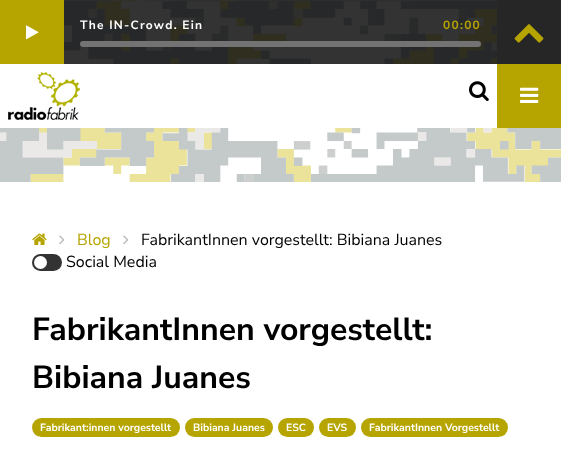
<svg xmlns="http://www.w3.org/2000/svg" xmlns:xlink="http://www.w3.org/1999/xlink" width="561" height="467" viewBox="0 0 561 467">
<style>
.cls-1{font:bold 12px Nunito Sans;letter-spacing:1.25px;fill:#ffffff}
.cls-2{font:bold 12px Nunito Sans;letter-spacing:1.25px;fill:#b6a401}
.cls-3{font:16px Nunito Sans;fill:#b6a401}
.cls-4{font:16px Nunito Sans;fill:#000000}
.cls-5{font:bold 32px Nunito Sans;fill:#000000}
.cls-6{font:bold 10.5px Nunito Sans;fill:#ffffff}
</style>
<rect width="100%" height="100%" fill="#ffffff"/>
<image xlink:href="image0.png" x="0" y="0" width="561" height="182"/>
<rect fill="#000000" fill-opacity="0.8" x="64" y="0" width="433" height="64"/>
<rect fill="#b6a401" x="0" y="0" width="64" height="64"/>
<image xlink:href="image1.png" x="26" y="25" width="13" height="15"/>
<rect fill="#737373" x="80" y="41" width="401" height="6" rx="3"/>
<rect fill="#262626" x="497" y="0" width="64" height="64"/>
<image xlink:href="image2.png" x="514" y="24" width="30" height="19"/>
<rect fill="#ffffff" x="0" y="64" width="497" height="64"/>
<image xlink:href="image3.png" x="8" y="72" width="72" height="48"/>
<image xlink:href="image4.png" x="469" y="81" width="20" height="20"/>
<rect fill="#b6a401" x="497" y="64" width="64" height="64"/>
<image xlink:href="image5.png" x="520" y="87" width="19" height="16"/>
<image xlink:href="image6.png" x="32" y="233" width="15" height="12"/>
<image xlink:href="image7.png" x="59" y="235" width="6" height="10"/>
<image xlink:href="image7.png" x="123" y="235" width="6" height="10"/>
<rect fill="#333333" x="32" y="254" width="30" height="17" rx="8.5"/>
<circle fill="#ffffff" cx="40.5" cy="262.5" r="6.5"/>
<rect fill="#b6a401" x="32" y="418" width="148" height="19" rx="9.5"/>
<rect fill="#b6a401" x="185" y="418" width="88" height="19" rx="9.5"/>
<rect fill="#b6a401" x="278" y="418" width="36" height="19" rx="9.5"/>
<rect fill="#b6a401" x="319" y="418" width="37" height="19" rx="9.5"/>
<rect fill="#b6a401" x="361" y="418" width="147" height="19" rx="9.5"/>
<text class="cls-1" x="80" y="29">The IN-Crowd. Ein</text>
<text class="cls-2" x="443" y="29">00:00</text>
<text class="cls-3" x="77" y="245">Blog</text>
<text class="cls-4" x="141" y="245">FabrikantInnen vorgestellt: Bibiana Juanes</text>
<text class="cls-4" x="66" y="267">Social Media</text>
<text class="cls-5"><tspan x="32" y="340">FabrikantInnen vorgestellt:</tspan><tspan x="32" y="388">Bibiana Juanes</tspan></text>
<text class="cls-6" x="40" y="431">Fabrikant:innen vorgestellt</text>
<text class="cls-6" x="193" y="431">Bibiana Juanes</text>
<text class="cls-6" x="286" y="431">ESC</text>
<text class="cls-6" x="327" y="431">EVS</text>
<text class="cls-6" x="369" y="431">FabrikantInnen Vorgestellt</text>
</svg>
